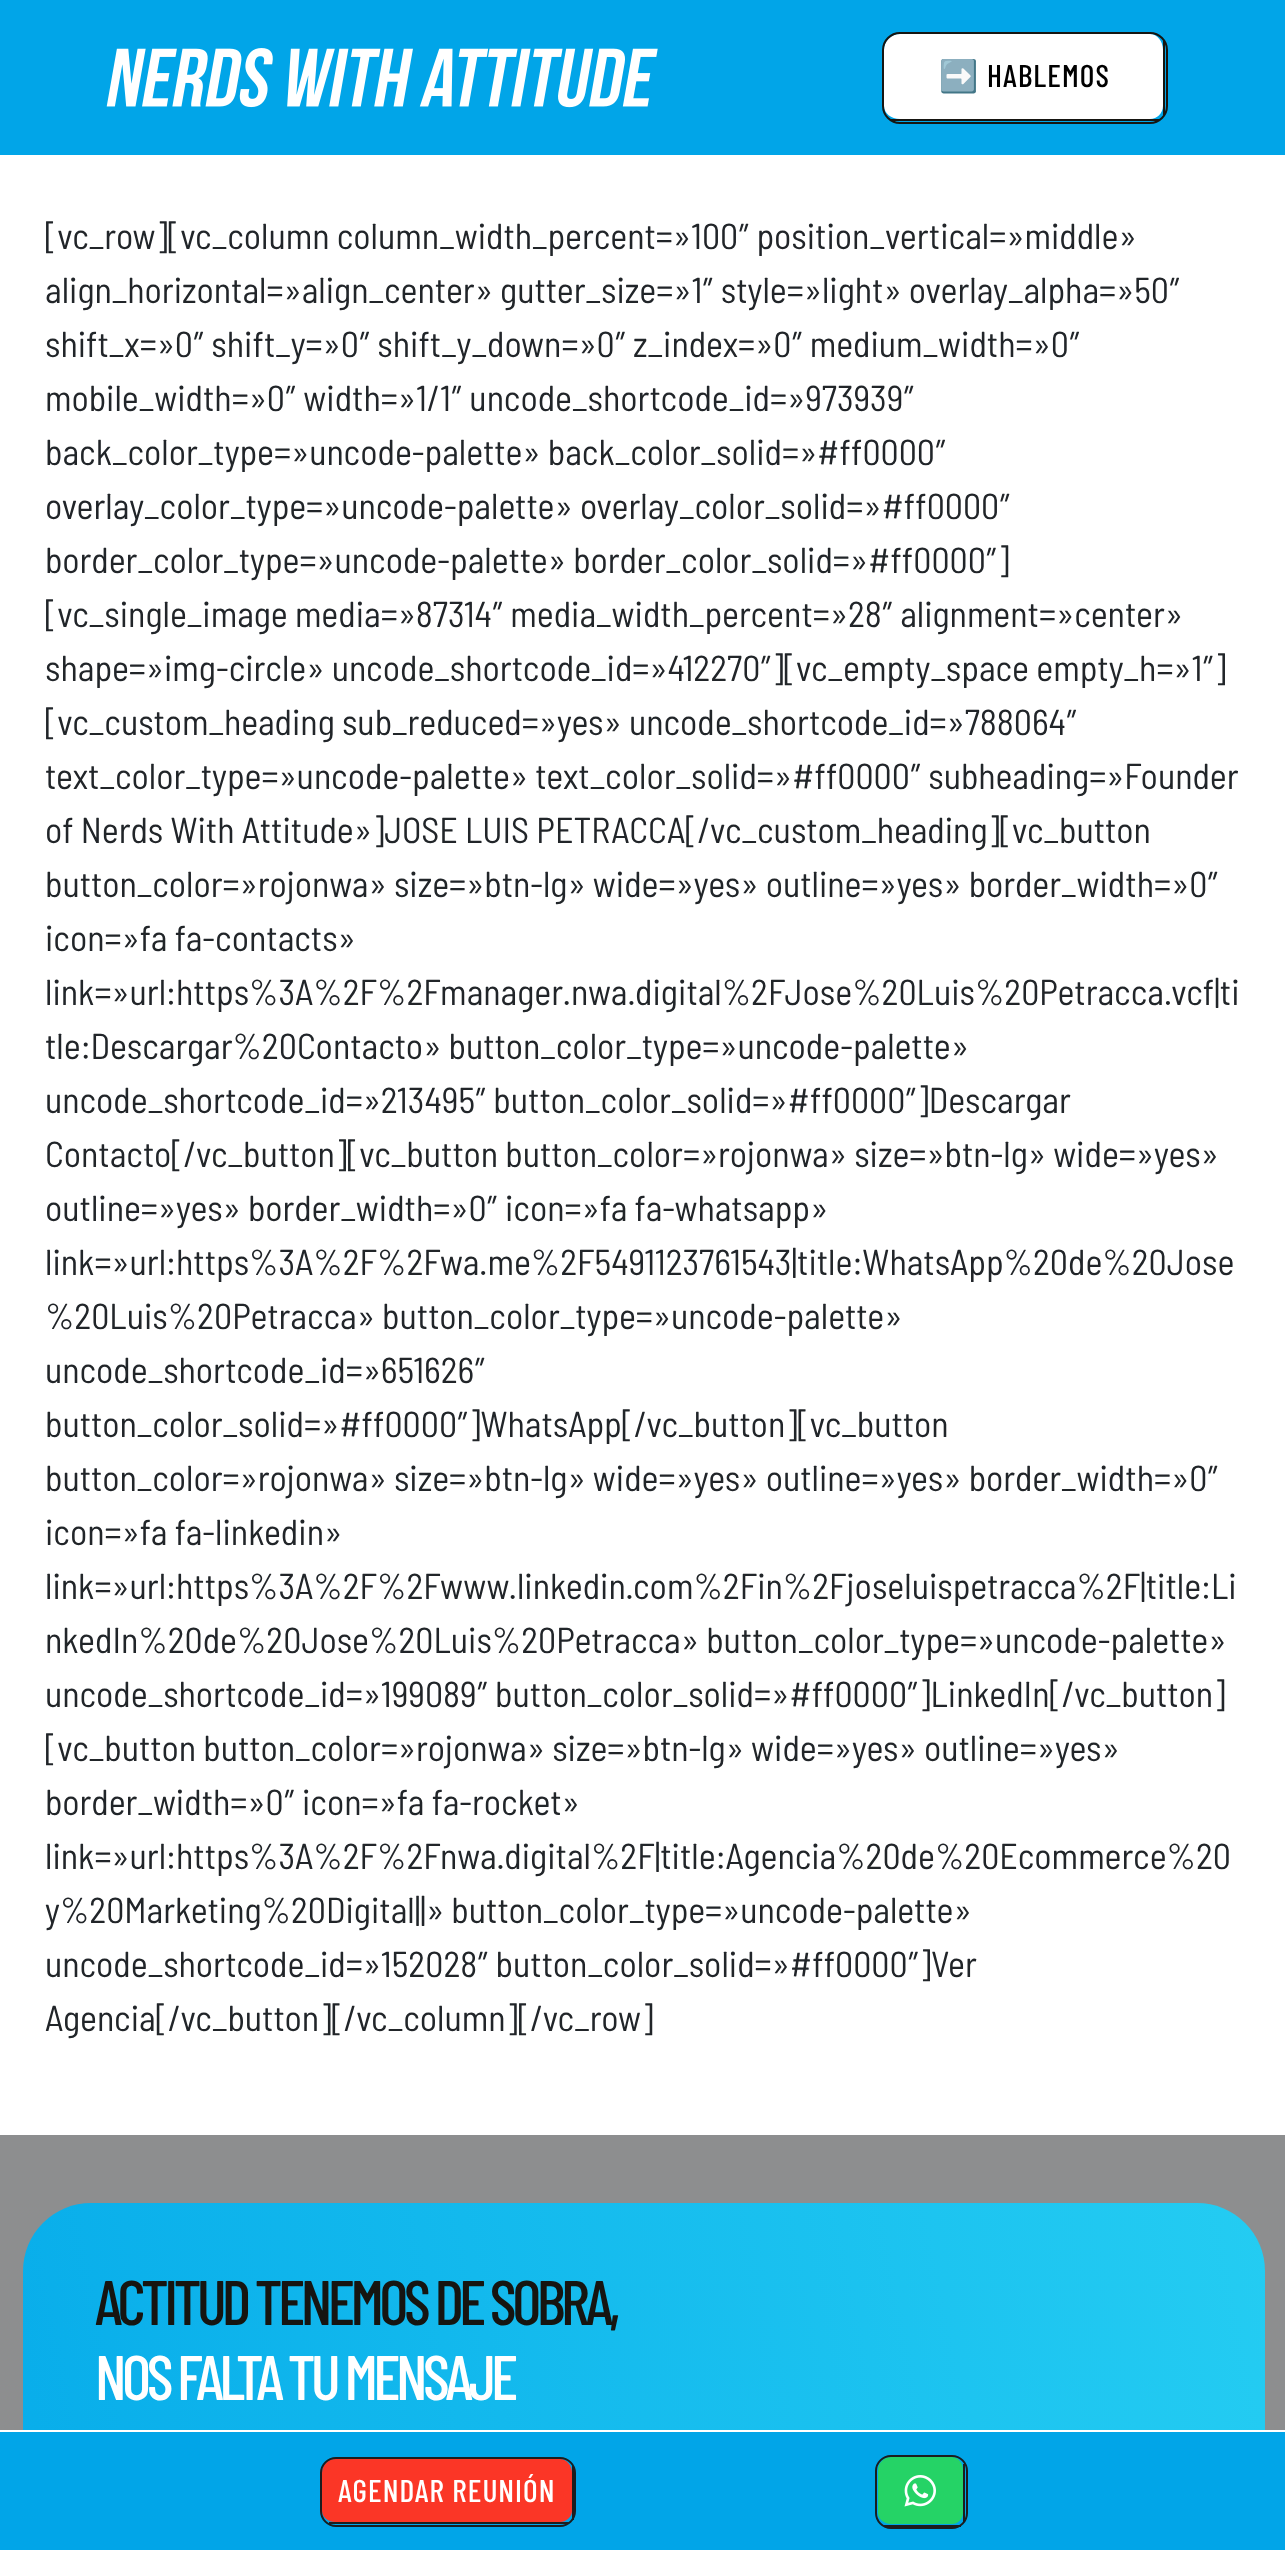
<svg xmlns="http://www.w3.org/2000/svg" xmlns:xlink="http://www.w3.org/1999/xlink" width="1285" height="2550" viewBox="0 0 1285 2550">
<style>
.cls-1{font:31.5px Noto Color Emoji;letter-spacing:1.1px;fill:#000000}
.cls-2{font:500 31.5px Barlow Condensed;letter-spacing:1.1px;fill:#000000}
.cls-3{font:500 31.5px Barlow Condensed;letter-spacing:1.1px;fill:#ffffff}
.cls-4{font:36px Barlow Semi Condensed;fill:#212529}
.cls-5{font:500 63px Barlow Condensed;letter-spacing:-4.5px;fill:#161511}
.cls-6{font:500 63px Barlow Condensed;letter-spacing:-4.5px;fill:#ffffff}
</style>
<defs>
<linearGradient id="g1" gradientUnits="userSpaceOnUse" x1="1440" y1="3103" x2="-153" y2="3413"><stop offset="0" stop-color="#24ccf2"/><stop offset="1" stop-color="#01a5e8"/></linearGradient>
</defs>
<rect width="100%" height="100%" fill="#8d8e8f"/>
<rect fill="#01a5e8" x="0" y="0" width="1285" height="155"/>
<image xlink:href="image0.png" x="106" y="48" width="552" height="60"/>
<path fill="#ffffff" d="M900 34H1150C1157 34 1163 41 1163 50V106C1163 113 1157 119 1150 119H900C891 119 884 113 884 106V50C884 41 891 34 900 34Z"/>
<rect fill="none" stroke="#161511" stroke-width="2" x="883" y="33" width="284" height="90" rx="17"/>
<rect fill="#161511" x="1163" y="41" width="2" height="74"/>
<rect fill="#161511" x="891" y="119" width="268" height="2"/>
<rect fill="url(#g1)" x="23" y="2203" width="1242" height="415" rx="68"/>
<rect fill="#01a5e8" x="0" y="2432" width="1285" height="118"/>
<rect fill="#ffffff" x="0" y="2430" width="1285" height="2"/>
<path fill="#fb3626" d="M335 2459H560C566 2459 572 2465 572 2473V2511C572 2517 566 2522 560 2522H335C328 2522 322 2517 322 2511V2473C322 2465 328 2459 335 2459Z"/>
<rect fill="none" stroke="#1b1d1f" stroke-width="2" x="321" y="2458" width="254" height="68" rx="15"/>
<rect fill="#1b1d1f" x="572" y="2466" width="2" height="54"/>
<rect fill="#1b1d1f" x="329" y="2522" width="240" height="2"/>
<path fill="#25d366" d="M891 2457H952C958 2457 963 2463 963 2470V2513C963 2519 958 2524 952 2524H891C884 2524 878 2519 878 2513V2470C878 2463 884 2457 891 2457Z"/>
<rect fill="none" stroke="#1b1d1f" stroke-width="2" x="876" y="2456" width="91" height="72" rx="15"/>
<rect fill="#1b1d1f" x="963" y="2464" width="2" height="58"/>
<rect fill="#1b1d1f" x="884" y="2525" width="77" height="2"/>
<image xlink:href="image1.png" x="904" y="2475" width="32" height="32"/>
<rect fill="#ffffff" x="0" y="155" width="1285" height="1980"/>
<text class="cls-1" x="939" y="87">➡️</text>
<text class="cls-2" x="987" y="87">HABLEMOS</text>
<text class="cls-3" x="338" y="2502">AGENDAR REUNIÓN</text>
<text class="cls-4"><tspan x="45" y="249">[vc_row][vc_column column_width_percent=»100″ position_vertical=»middle»</tspan><tspan x="45" y="303">align_horizontal=»align_center» gutter_size=»1″ style=»light» overlay_alpha=»50″</tspan><tspan x="45" y="357">shift_x=»0″ shift_y=»0″ shift_y_down=»0″ z_index=»0″ medium_width=»0″</tspan><tspan x="45" y="411">mobile_width=»0″ width=»1/1″ uncode_shortcode_id=»973939″</tspan><tspan x="45" y="465">back_color_type=»uncode-palette» back_color_solid=»#ff0000″</tspan><tspan x="45" y="519">overlay_color_type=»uncode-palette» overlay_color_solid=»#ff0000″</tspan><tspan x="45" y="573">border_color_type=»uncode-palette» border_color_solid=»#ff0000″]</tspan><tspan x="45" y="627">[vc_single_image media=»87314″ media_width_percent=»28″ alignment=»center»</tspan><tspan x="45" y="681">shape=»img-circle» uncode_shortcode_id=»412270″][vc_empty_space empty_h=»1″]</tspan><tspan x="45" y="735">[vc_custom_heading sub_reduced=»yes» uncode_shortcode_id=»788064″</tspan><tspan x="45" y="789">text_color_type=»uncode-palette» text_color_solid=»#ff0000″ subheading=»Founder</tspan><tspan x="45" y="843">of Nerds With Attitude»]JOSE LUIS PETRACCA[/vc_custom_heading][vc_button</tspan><tspan x="45" y="897">button_color=»rojonwa» size=»btn-lg» wide=»yes» outline=»yes» border_width=»0″</tspan><tspan x="45" y="951">icon=»fa fa-contacts»</tspan><tspan x="45" y="1005">link=»url:https%3A%2F%2Fmanager.nwa.digital%2FJose%20Luis%20Petracca.vcf|ti</tspan><tspan x="45" y="1059">tle:Descargar%20Contacto» button_color_type=»uncode-palette»</tspan><tspan x="45" y="1113">uncode_shortcode_id=»213495″ button_color_solid=»#ff0000″]Descargar</tspan><tspan x="45" y="1167">Contacto[/vc_button][vc_button button_color=»rojonwa» size=»btn-lg» wide=»yes»</tspan><tspan x="45" y="1221">outline=»yes» border_width=»0″ icon=»fa fa-whatsapp»</tspan><tspan x="45" y="1275">link=»url:https%3A%2F%2Fwa.me%2F5491123761543|title:WhatsApp%20de%20Jose</tspan><tspan x="45" y="1329">%20Luis%20Petracca» button_color_type=»uncode-palette»</tspan><tspan x="45" y="1383">uncode_shortcode_id=»651626″</tspan><tspan x="45" y="1437">button_color_solid=»#ff0000″]WhatsApp[/vc_button][vc_button</tspan><tspan x="45" y="1491">button_color=»rojonwa» size=»btn-lg» wide=»yes» outline=»yes» border_width=»0″</tspan><tspan x="45" y="1545">icon=»fa fa-linkedin»</tspan><tspan x="45" y="1599">link=»url:https%3A%2F%2Fwww.linkedin.com%2Fin%2Fjoseluispetracca%2F|title:Li</tspan><tspan x="45" y="1653">nkedIn%20de%20Jose%20Luis%20Petracca» button_color_type=»uncode-palette»</tspan><tspan x="45" y="1707">uncode_shortcode_id=»199089″ button_color_solid=»#ff0000″]LinkedIn[/vc_button]</tspan><tspan x="45" y="1761">[vc_button button_color=»rojonwa» size=»btn-lg» wide=»yes» outline=»yes»</tspan><tspan x="45" y="1815">border_width=»0″ icon=»fa fa-rocket»</tspan><tspan x="45" y="1869">link=»url:https%3A%2F%2Fnwa.digital%2F|title:Agencia%20de%20Ecommerce%20</tspan><tspan x="45" y="1923">y%20Marketing%20Digital||» button_color_type=»uncode-palette»</tspan><tspan x="45" y="1977">uncode_shortcode_id=»152028″ button_color_solid=»#ff0000″]Ver</tspan><tspan x="45" y="2031">Agencia[/vc_button][/vc_column][/vc_row]</tspan></text>
<text class="cls-5" x="95" y="2325">ACTITUD TENEMOS DE SOBRA,</text>
<text class="cls-6" x="95" y="2400">NOS FALTA TU MENSAJE</text>
</svg>
